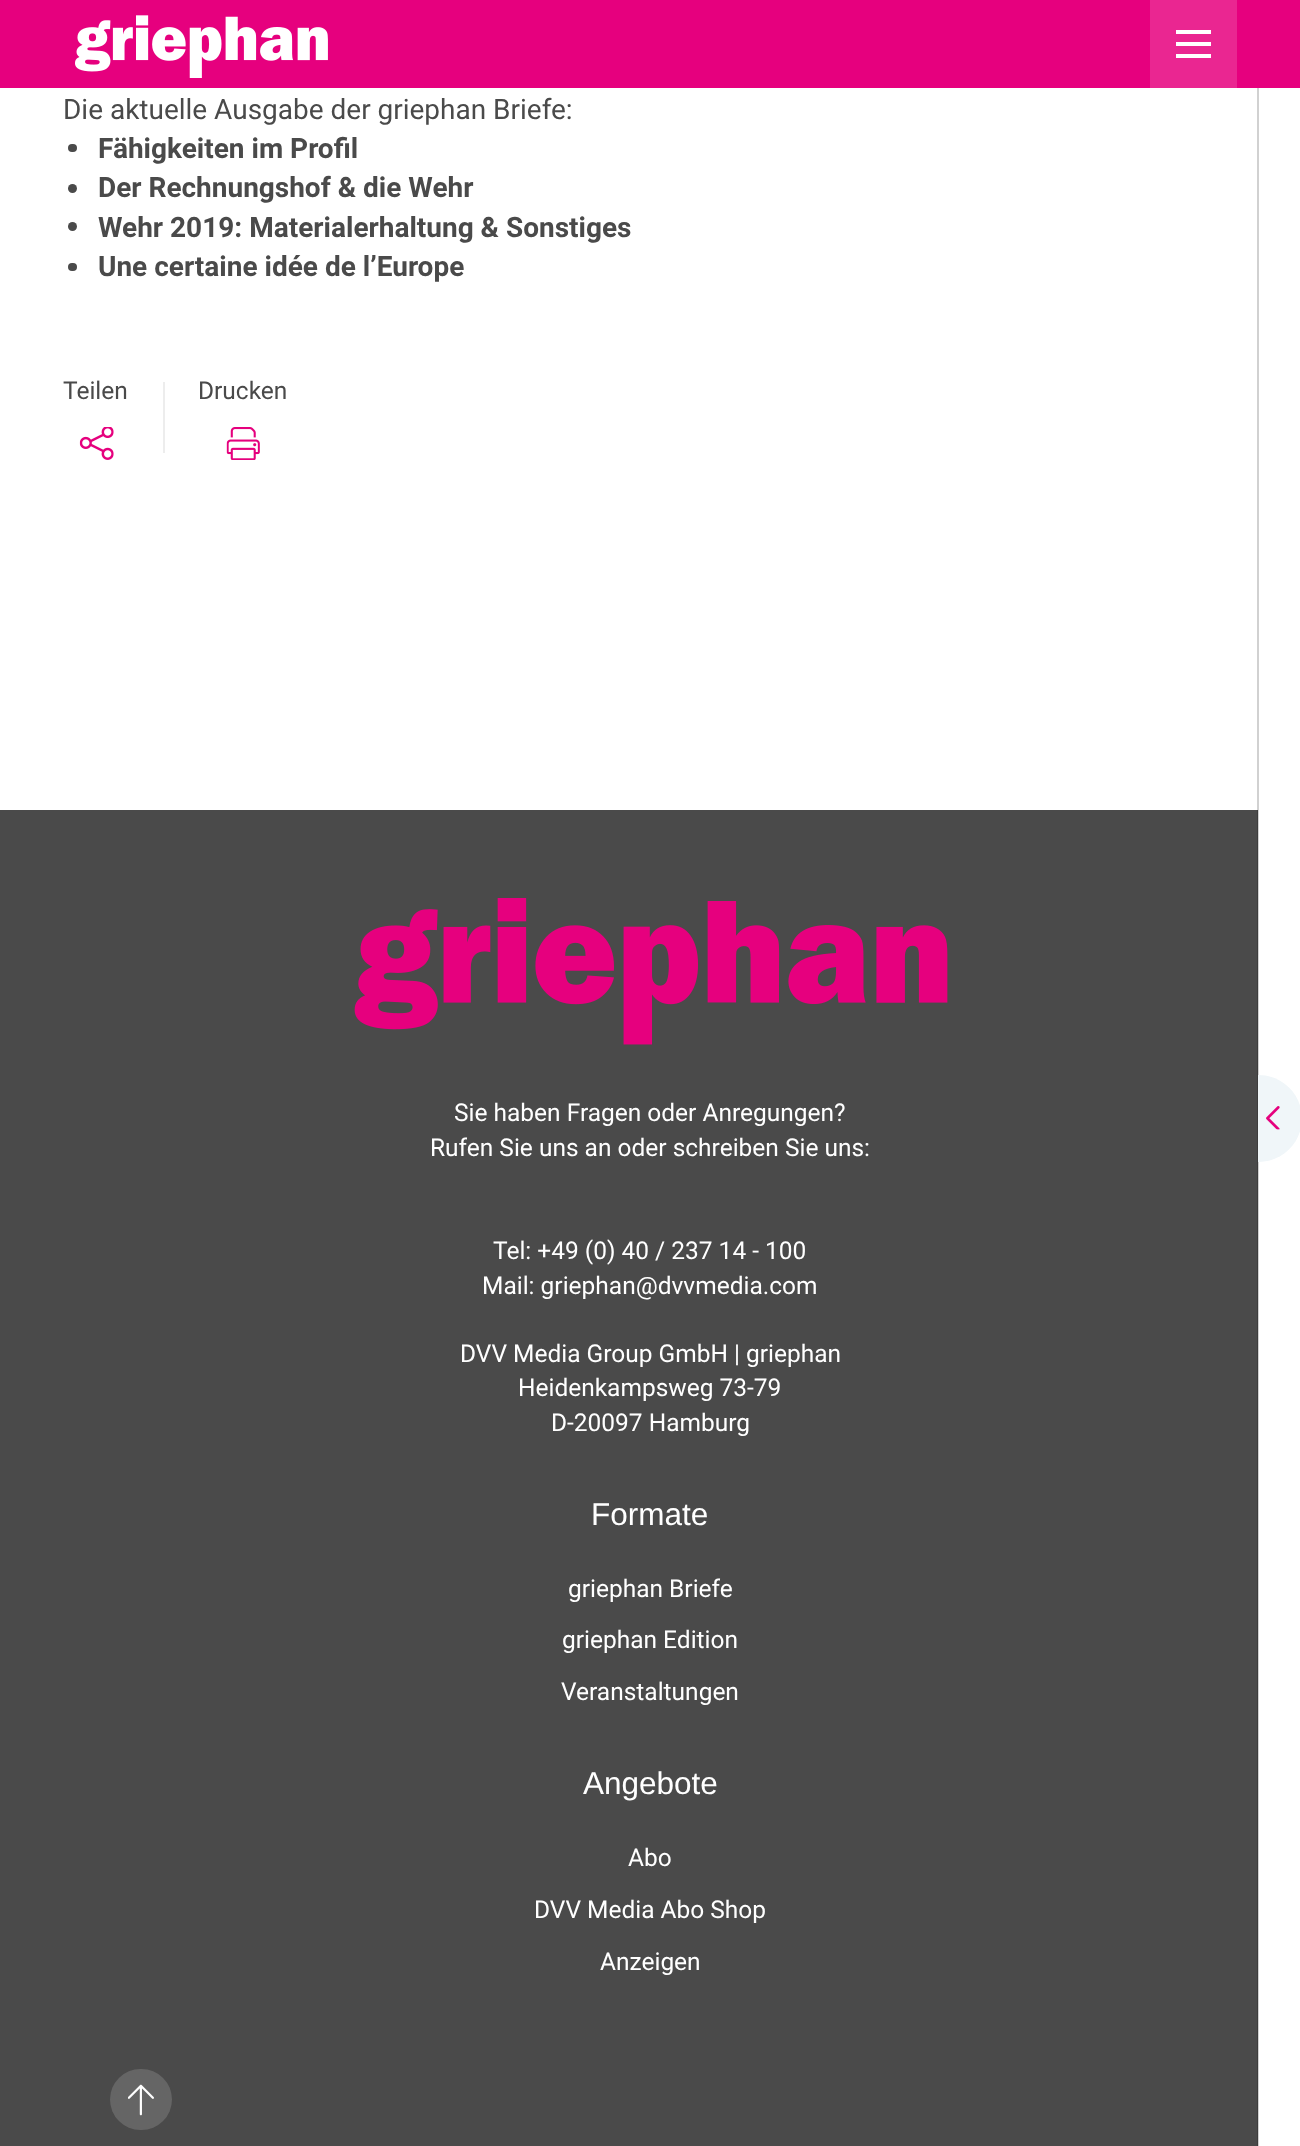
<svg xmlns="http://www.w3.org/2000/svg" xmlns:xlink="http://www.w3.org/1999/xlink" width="1300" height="2146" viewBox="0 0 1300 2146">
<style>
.cls-1{font:28px Roboto;fill:#4a4a4a}
.cls-2{font:bold 28px Roboto;fill:#4a4a4a}
.cls-3{font:24.5px Roboto;fill:#4a4a4a}
.cls-4{font:24.5px Roboto;fill:#ffffff}
.cls-5{font:31.5px Liberation Sans;fill:#ffffff}
</style>
<rect width="100%" height="100%" fill="#ffffff"/>
<rect fill="#d1d1d1" x="1257" y="88" width="1" height="722"/>
<rect fill="#e6007e" x="0" y="0" width="1300" height="88"/>
<rect fill="#d1d1d1" x="1257" y="88" width="2" height="2"/>
<image xlink:href="image0.png" x="75" y="15" width="253" height="63"/>
<rect fill="#ea2691" x="1150" y="0" width="87" height="88"/>
<rect fill="#ffffff" x="1176" y="30" width="35" height="4"/>
<rect fill="#ffffff" x="1176" y="42" width="35" height="4"/>
<rect fill="#ffffff" x="1176" y="54" width="35" height="4"/>
<rect fill="#4a4a4a" x="68" y="144" width="9" height="8" rx="4"/>
<circle fill="#4a4a4a" cx="72.5" cy="188.5" r="4.5"/>
<circle fill="#4a4a4a" cx="72.5" cy="226.5" r="4.5"/>
<rect fill="#4a4a4a" x="68" y="263" width="9" height="8" rx="4"/>
<image xlink:href="image1.png" x="79" y="427" width="35" height="33"/>
<rect fill="#ededed" x="163" y="382" width="2" height="71"/>
<image xlink:href="image2.png" x="226" y="427" width="34" height="33"/>
<rect fill="#4a4a4a" x="0" y="810" width="1257" height="1336"/>
<rect fill="#3d3d3d" x="1257" y="810" width="1" height="1336"/>
<image xlink:href="image3.png" x="354" y="898" width="594" height="147"/>
<rect fill="#d1d1d1" x="1258" y="88" width="1" height="2058"/>
<path fill="#f0f6f9" d="M1258 1075H1258.5C1282.5 1075 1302 1094.5 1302 1118.5C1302 1142.5 1282.5 1162 1258.5 1162H1258Z"/>
<image xlink:href="image4.png" x="1266" y="1106" width="14" height="24"/>
<rect fill="#656565" x="110" y="2069" width="62" height="61" rx="30.5"/>
<image xlink:href="image5.png" x="128" y="2084" width="26" height="32"/>
<text class="cls-1" x="63" y="119">Die aktuelle Ausgabe der griephan Briefe:</text>
<text class="cls-2"><tspan x="98" y="158">Fähigkeiten im Profil</tspan><tspan x="98" y="197">Der Rechnungshof &amp; die Wehr</tspan><tspan x="98" y="237">Wehr 2019: Materialerhaltung &amp; Sonstiges</tspan><tspan x="98" y="276">Une certaine idée de l’Europe</tspan></text>
<text class="cls-3" x="63" y="399">Teilen</text>
<text class="cls-3" x="198" y="399">Drucken</text>
<text class="cls-4" x="454" y="1121">Sie haben Fragen oder Anregungen?</text>
<text class="cls-4" x="430" y="1156">Rufen Sie uns an oder schreiben Sie uns:</text>
<text class="cls-4" x="493" y="1259">Tel: +49 (0) 40 / 237 14 - 100</text>
<text class="cls-4" x="482" y="1294">Mail: griephan@dvvmedia.com</text>
<text class="cls-4" x="460" y="1362">DVV Media Group GmbH | griephan</text>
<text class="cls-4" x="518" y="1396">Heidenkampsweg 73-79</text>
<text class="cls-4" x="551" y="1431">D-20097 Hamburg</text>
<text class="cls-5" x="591" y="1525">Formate</text>
<text class="cls-4" x="568" y="1597">griephan Briefe</text>
<text class="cls-4" x="562" y="1648">griephan Edition</text>
<text class="cls-4" x="561" y="1700">Veranstaltungen</text>
<text class="cls-5" x="583" y="1794">Angebote</text>
<text class="cls-4" x="628" y="1866">Abo</text>
<text class="cls-4" x="534" y="1918">DVV Media Abo Shop</text>
<text class="cls-4" x="600" y="1970">Anzeigen</text>
</svg>
